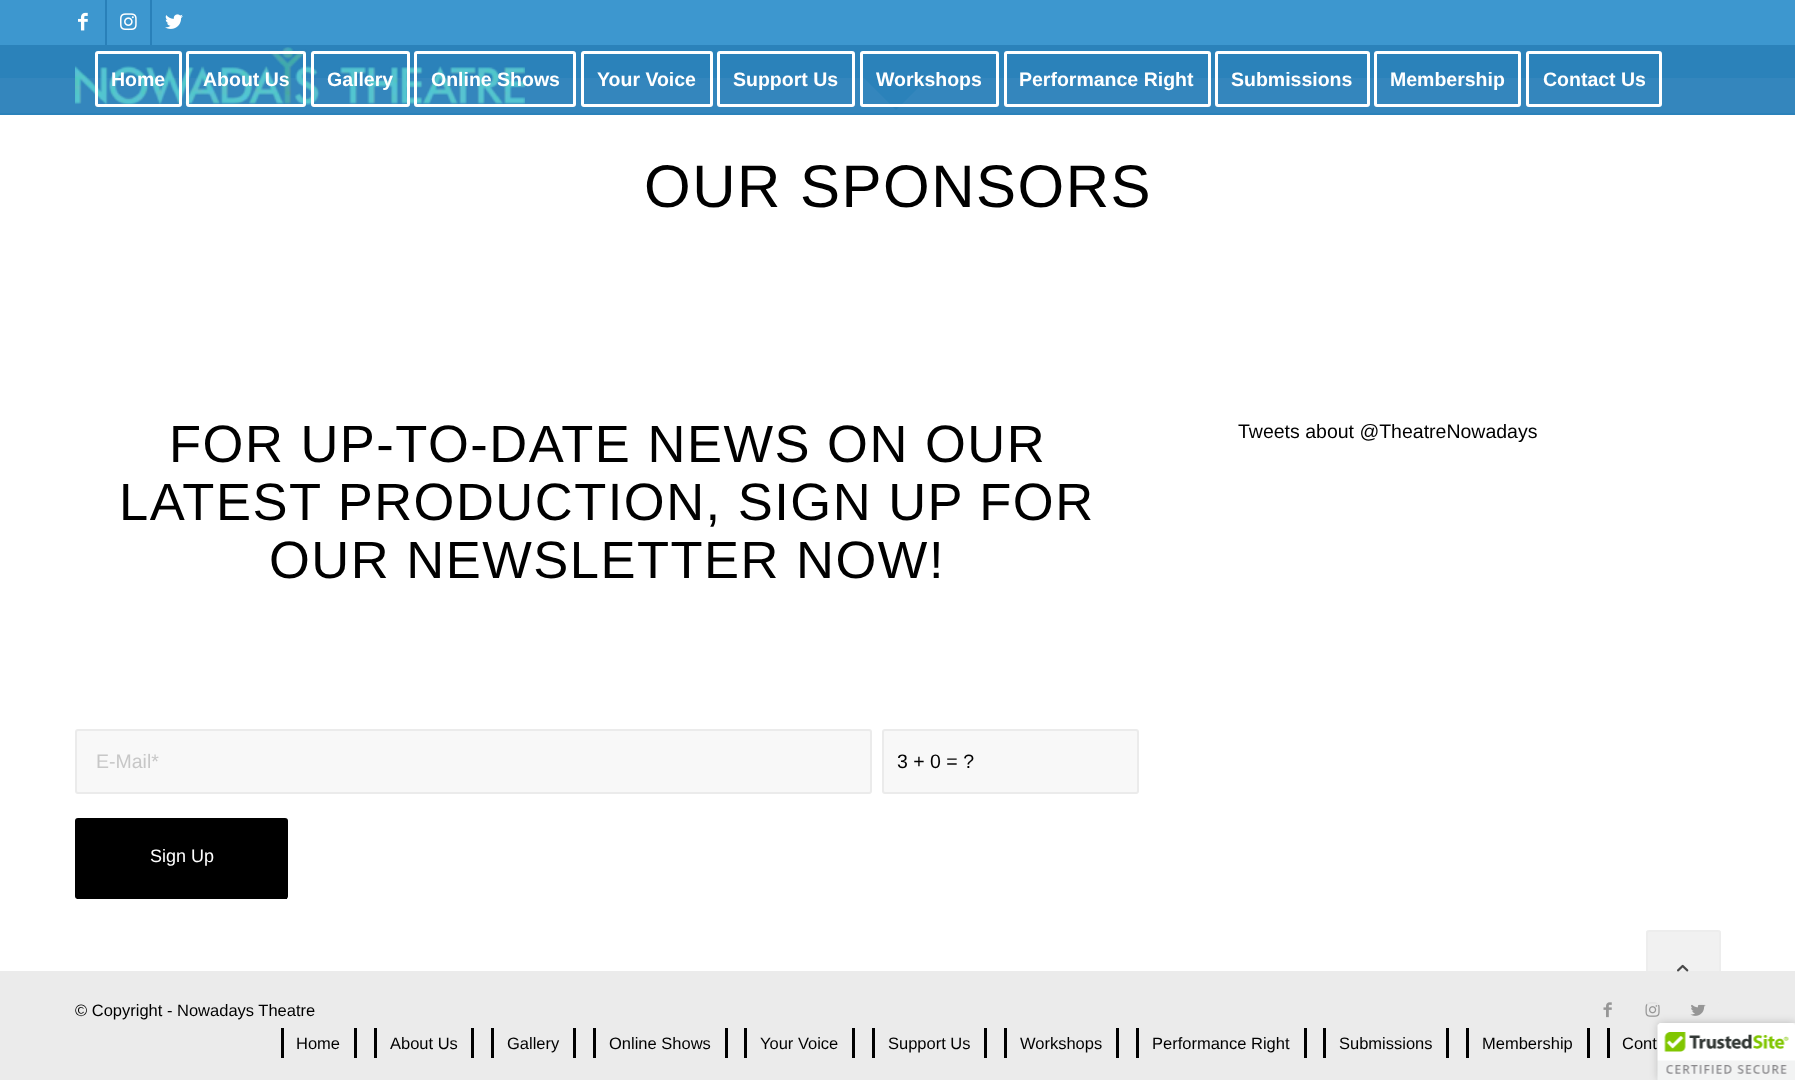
<svg xmlns="http://www.w3.org/2000/svg" xmlns:xlink="http://www.w3.org/1999/xlink" width="1795" height="1080" viewBox="0 0 1795 1080">
<style>
.cls-1{font:bold 19.5px Liberation Sans;fill:#ffffff}
.cls-2{font:60px Liberation Sans;letter-spacing:1.5px;fill:#000000}
.cls-3{font:52.5px Liberation Sans;letter-spacing:1.5px;fill:#000000}
.cls-4{font:19.5px Liberation Sans;fill:#c7c7c7}
.cls-5{font:19.5px Liberation Sans;fill:#000000}
.cls-6{font:18px Liberation Sans;fill:#ffffff}
.cls-7{font:16.5px Liberation Sans;fill:#000000}
</style>
<defs>
<clipPath id="clip1"><rect x="860" y="78" width="75" height="38"/></clipPath>
<clipPath id="clip2"><rect x="255" y="1028" width="1466" height="30"/></clipPath>
</defs>
<rect width="100%" height="100%" fill="#2b82ba"/>
<rect fill="#3d97cf" x="0" y="0" width="1795" height="45"/>
<rect fill="#2980b9" x="105" y="0" width="2" height="45"/>
<image xlink:href="image0.png" x="78" y="12" width="10" height="19"/>
<rect fill="#2980b9" x="150" y="0" width="2" height="45"/>
<image xlink:href="image1.png" x="120" y="13" width="17" height="18"/>
<image xlink:href="image2.png" x="165" y="14" width="18" height="15"/>
<rect fill="#3486bd" x="0" y="78" width="1795" height="35"/>
<image xlink:href="image3.png" x="75" y="47" width="450" height="58"/>
<rect fill="none" stroke="#ffffff" stroke-width="3" x="96.5" y="52.5" width="84" height="53" rx="1.5"/>
<rect fill="none" stroke="#ffffff" stroke-width="3" x="187.5" y="52.5" width="117" height="53" rx="1.5"/>
<rect fill="none" stroke="#ffffff" stroke-width="3" x="312.5" y="52.5" width="96" height="53" rx="1.5"/>
<rect fill="none" stroke="#ffffff" stroke-width="3" x="415.5" y="52.5" width="159" height="53" rx="1.5"/>
<rect fill="none" stroke="#ffffff" stroke-width="3" x="582.5" y="52.5" width="129" height="53" rx="1.5"/>
<rect fill="none" stroke="#ffffff" stroke-width="3" x="718.5" y="52.5" width="135" height="53" rx="1.5"/>
<g clip-path="url(#clip1)">
<path fill="#2b82ba" d="M896 4L949 57L896 110L843 57Z"/>
</g>
<rect fill="none" stroke="#ffffff" stroke-width="3" x="861.5" y="52.5" width="136" height="53" rx="1.5"/>
<rect fill="none" stroke="#ffffff" stroke-width="3" x="1005.5" y="52.5" width="204" height="53" rx="1.5"/>
<rect fill="none" stroke="#ffffff" stroke-width="3" x="1216.5" y="52.5" width="152" height="53" rx="1.5"/>
<rect fill="none" stroke="#ffffff" stroke-width="3" x="1375.5" y="52.5" width="144" height="53" rx="1.5"/>
<rect fill="none" stroke="#ffffff" stroke-width="3" x="1527.5" y="52.5" width="133" height="53" rx="1.5"/>
<rect fill="#ffffff" x="0" y="115" width="1795" height="856"/>
<rect fill="#f8f8f8" stroke="#ebebeb" stroke-width="2" x="76" y="730" width="795" height="63" rx="2"/>
<rect fill="#f8f8f8" stroke="#ebebeb" stroke-width="2" x="883" y="730" width="255" height="63" rx="2"/>
<rect fill="#000000" x="75" y="818" width="213" height="81" rx="3"/>
<rect fill="#000000" x="77" y="898" width="210" height="1"/>
<rect fill="#ebebeb" x="0" y="971" width="1795" height="109"/>
<image xlink:href="image4.png" x="1603" y="1002" width="9" height="16"/>
<image xlink:href="image5.png" x="1645" y="1002" width="15" height="15"/>
<image xlink:href="image6.png" x="1690" y="1003" width="16" height="13"/>
<g clip-path="url(#clip2)">
<rect fill="none" stroke="#000000" stroke-width="3" x="282.5" y="1020.5" width="73" height="48" rx="1.5"/>
<rect fill="none" stroke="#000000" stroke-width="3" x="375.5" y="1020.5" width="97" height="48" rx="1.5"/>
<rect fill="none" stroke="#000000" stroke-width="3" x="492.5" y="1020.5" width="82" height="48" rx="1.5"/>
<rect fill="none" stroke="#000000" stroke-width="3" x="594.5" y="1020.5" width="132" height="48" rx="1.5"/>
<rect fill="none" stroke="#000000" stroke-width="3" x="745.5" y="1020.5" width="108" height="48" rx="1.5"/>
<rect fill="none" stroke="#000000" stroke-width="3" x="873.5" y="1020.5" width="112" height="48" rx="1.5"/>
<rect fill="none" stroke="#000000" stroke-width="3" x="1005.5" y="1020.5" width="112" height="48" rx="1.5"/>
<rect fill="none" stroke="#000000" stroke-width="3" x="1137.5" y="1020.5" width="168" height="48" rx="1.5"/>
<rect fill="none" stroke="#000000" stroke-width="3" x="1324.5" y="1020.5" width="123" height="48" rx="1.5"/>
<rect fill="none" stroke="#000000" stroke-width="3" x="1467.5" y="1020.5" width="121" height="48" rx="1.5"/>
<rect fill="none" stroke="#000000" stroke-width="3" x="1608.5" y="1020.5" width="111" height="48" rx="1.5"/>
</g>
<rect fill="#ebebeb" fill-opacity="0.7" x="1646" y="930" width="75" height="75" rx="3"/>
<rect fill="none" stroke="#ebebeb" stroke-opacity="0.7" stroke-width="2" x="1647" y="931" width="73" height="73" rx="2"/>
<image xlink:href="image7.png" x="1677" y="964" width="12" height="8"/>
<rect fill="#000000" fill-opacity="0.2" filter="blur(4px)" x="1658" y="1023" width="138" height="57" rx="3"/>
<path fill="#ffffff" d="M1661 1023H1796V1080H1658V1026C1658 1024.5 1659.5 1023 1661 1023Z"/>
<text class="cls-1" x="111" y="86">Home</text>
<text class="cls-1" x="203" y="86">About Us</text>
<text class="cls-1" x="327" y="86">Gallery</text>
<text class="cls-1" x="431" y="86">Online Shows</text>
<text class="cls-1" x="597" y="86">Your Voice</text>
<text class="cls-1" x="733" y="86">Support Us</text>
<text class="cls-1" x="876" y="86">Workshops</text>
<text class="cls-1" x="1019" y="86">Performance Right</text>
<text class="cls-1" x="1231" y="86">Submissions</text>
<text class="cls-1" x="1390" y="86">Membership</text>
<text class="cls-1" x="1543" y="86">Contact Us</text>
<text class="cls-2" x="644" y="207">OUR SPONSORS</text>
<text class="cls-3" x="169" y="462">FOR UP-TO-DATE NEWS ON OUR</text>
<text class="cls-3" x="119" y="520">LATEST PRODUCTION, SIGN UP FOR</text>
<text class="cls-3" x="269" y="578">OUR NEWSLETTER NOW!</text>
<text class="cls-4" x="96" y="768">E-Mail*</text>
<text class="cls-5" x="897" y="768">3 + 0 = ?</text>
<text class="cls-6" x="150" y="862">Sign Up</text>
<text class="cls-5" x="1238" y="438">Tweets about @TheatreNowadays</text>
<text class="cls-7" x="75" y="1016">© Copyright - Nowadays Theatre</text>
<text class="cls-7" x="296" y="1049">Home</text>
<text class="cls-7" x="390" y="1049">About Us</text>
<text class="cls-7" x="507" y="1049">Gallery</text>
<text class="cls-7" x="609" y="1049">Online Shows</text>
<text class="cls-7" x="760" y="1049">Your Voice</text>
<text class="cls-7" x="888" y="1049">Support Us</text>
<text class="cls-7" x="1020" y="1049">Workshops</text>
<text class="cls-7" x="1152" y="1049">Performance Right</text>
<text class="cls-7" x="1339" y="1049">Submissions</text>
<text class="cls-7" x="1482" y="1049">Membership</text>
<text class="cls-7" x="1622" y="1049">Cont</text>
<image xlink:href="image8.png" x="1657" y="1023" width="138" height="57"/>
</svg>
